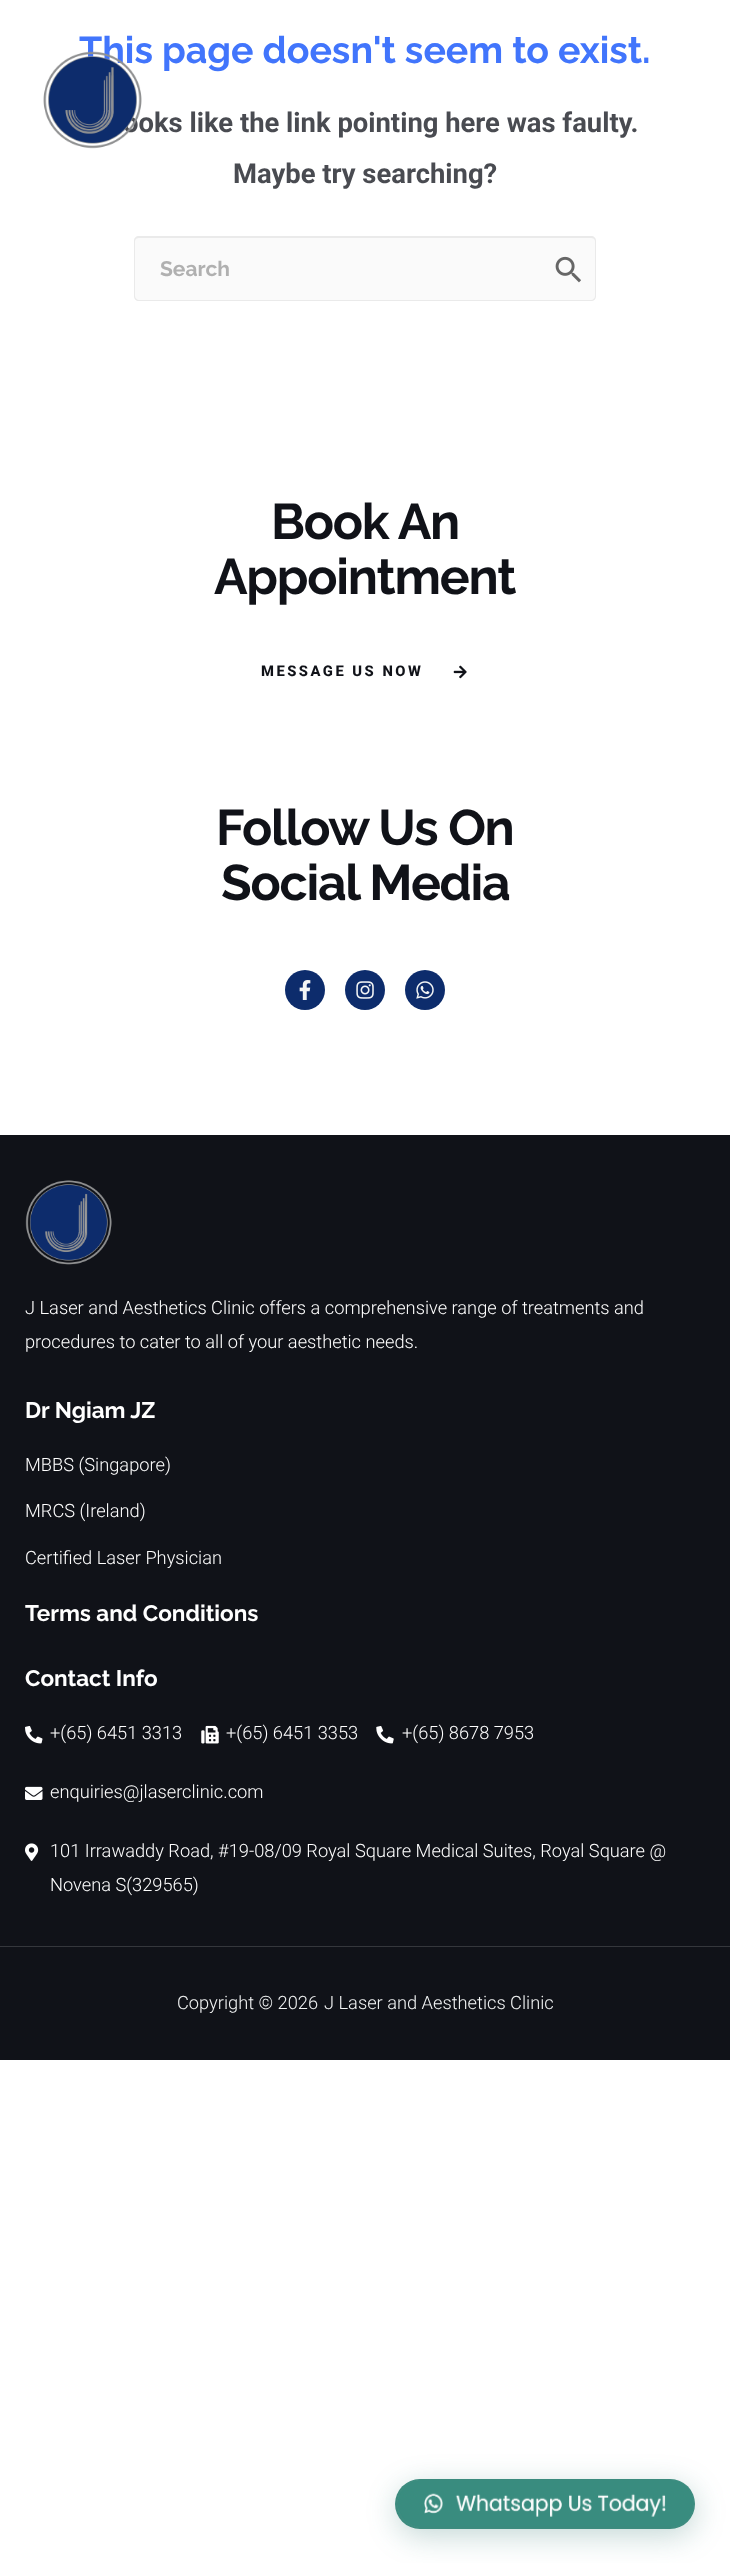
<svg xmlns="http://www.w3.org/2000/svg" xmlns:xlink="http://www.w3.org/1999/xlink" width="730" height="2563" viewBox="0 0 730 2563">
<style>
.cls-1{font:100 37.5px Raleway;fill:#4175fc}
.cls-2{font:bold 27.4px Roboto;fill:#494b51}
.cls-3{font:100 21px Raleway;fill:#b0b0b0}
.cls-4{font:100 50px Raleway;letter-spacing:-1.25px;fill:#101218}
.cls-5{font:800 14.75px Roboto;letter-spacing:2.5px;fill:#101218}
.cls-6{font:300 18.25px Roboto;fill:#ffffff}
.cls-7{font:100 22.5px Raleway;fill:#ffffff}
.cls-8{font:300 18.25px Roboto;fill:#f3f5f5}
</style>
<rect width="100%" height="100%" fill="#ffffff"/>
<path fill="#fafafa" d="M139 236H551V301H139C136 301 134 299 134 296V241C134 238 136 236 139 236Z"/>
<path fill="#eaeaea" fill-rule="evenodd" d="M139 236H551V301H139C136 301 134 299 134 296V241C134 238 136 236 139 236ZM139 238H551V300H139C137 300 135 298 135 296V241C135 239 137 238 139 238Z"/>
<path fill="#fafafa" d="M551 236H591C594 236 596 238 596 241V296C596 299 594 301 591 301H551Z"/>
<path fill="#eaeaea" fill-rule="evenodd" d="M551 236H591C594 236 596 238 596 241V296C596 299 594 301 591 301H551ZM551 238H591C593 238 595 239 595 241V296C595 298 593 300 591 300H551Z"/>
<image xlink:href="image0.png" x="555" y="256" width="26" height="27"/>
<image xlink:href="image2.png" x="453" y="665" width="14" height="14"/>
<circle fill="#0d2c6c" cx="305" cy="990" r="20"/>
<image xlink:href="image3.png" x="299" y="980" width="12" height="20"/>
<circle fill="#0d2c6c" cx="365" cy="990" r="20"/>
<image xlink:href="image4.png" x="356" y="981" width="18" height="18"/>
<circle fill="#0d2c6c" cx="425" cy="990" r="20"/>
<image xlink:href="image5.png" x="416" y="981" width="18" height="18"/>
<rect fill="#101218" x="0" y="1135" width="730" height="811"/>
<image xlink:href="image6.png" x="25" y="1180" width="87" height="85"/>
<image xlink:href="image7.png" x="25" y="1726" width="18" height="18"/>
<image xlink:href="image8.png" x="201" y="1725" width="18" height="19"/>
<image xlink:href="image9.png" x="376" y="1726" width="18" height="18"/>
<image xlink:href="image10.png" x="25" y="1786" width="18" height="14"/>
<image xlink:href="image11.png" x="25" y="1843" width="14" height="18"/>
<rect fill="#101218" x="0" y="1947" width="730" height="113"/>
<rect fill="#35373c" x="0" y="1946" width="730" height="1"/>
<rect fill="#075e54" fill-opacity="0.24" filter="blur(15px)" x="396" y="2486" width="300" height="50" rx="25"/>
<rect fill="#3c8b7e" x="395" y="2479" width="300" height="50" rx="25"/>
<image xlink:href="image12.png" x="397" y="2479" width="297" height="49"/>
<text class="cls-1" x="79" y="63">This page doesn't seem to exist.</text>
<text class="cls-2" x="123" y="132">ooks like the link pointing here was faulty.</text>
<text class="cls-2" x="233" y="183">Maybe try searching?</text>
<text class="cls-3" x="160" y="276">Search</text>
<image xlink:href="image1.png" x="43" y="51" width="99" height="98"/>
<text class="cls-4" x="271" y="539">Book An</text>
<text class="cls-4" x="214" y="594">Appointment</text>
<text class="cls-5" x="261" y="676">MESSAGE US NOW</text>
<text class="cls-4" x="216" y="845">Follow Us On</text>
<text class="cls-4" x="221" y="900">Social Media</text>
<text class="cls-6"><tspan x="25" y="1314">J Laser and Aesthetics Clinic offers a comprehensive range of treatments and</tspan><tspan x="25" y="1348">procedures to cater to all of your aesthetic needs.</tspan></text>
<text class="cls-7" x="25" y="1418">Dr Ngiam JZ</text>
<text class="cls-6" x="25" y="1471">MBBS (Singapore)</text>
<text class="cls-6" x="25" y="1517">MRCS (Ireland)</text>
<text class="cls-6" x="25" y="1564">Certified Laser Physician</text>
<text class="cls-7" x="25" y="1621">Terms and Conditions</text>
<text class="cls-7" x="25" y="1686">Contact Info</text>
<text class="cls-6" x="50" y="1739">+(65) 6451 3313</text>
<text class="cls-6" x="226" y="1739">+(65) 6451 3353</text>
<text class="cls-6" x="402" y="1739">+(65) 8678 7953</text>
<text class="cls-6" x="50" y="1798">enquiries@jlaserclinic.com</text>
<text class="cls-6"><tspan x="50" y="1857">101 Irrawaddy Road, #19-08/09 Royal Square Medical Suites, Royal Square @</tspan><tspan x="50" y="1891">Novena S(329565)</tspan></text>
<text class="cls-8" x="177" y="2009">Copyright © 2026</text>
<text class="cls-8" x="324" y="2009">J Laser and Aesthetics Clinic</text>
</svg>
